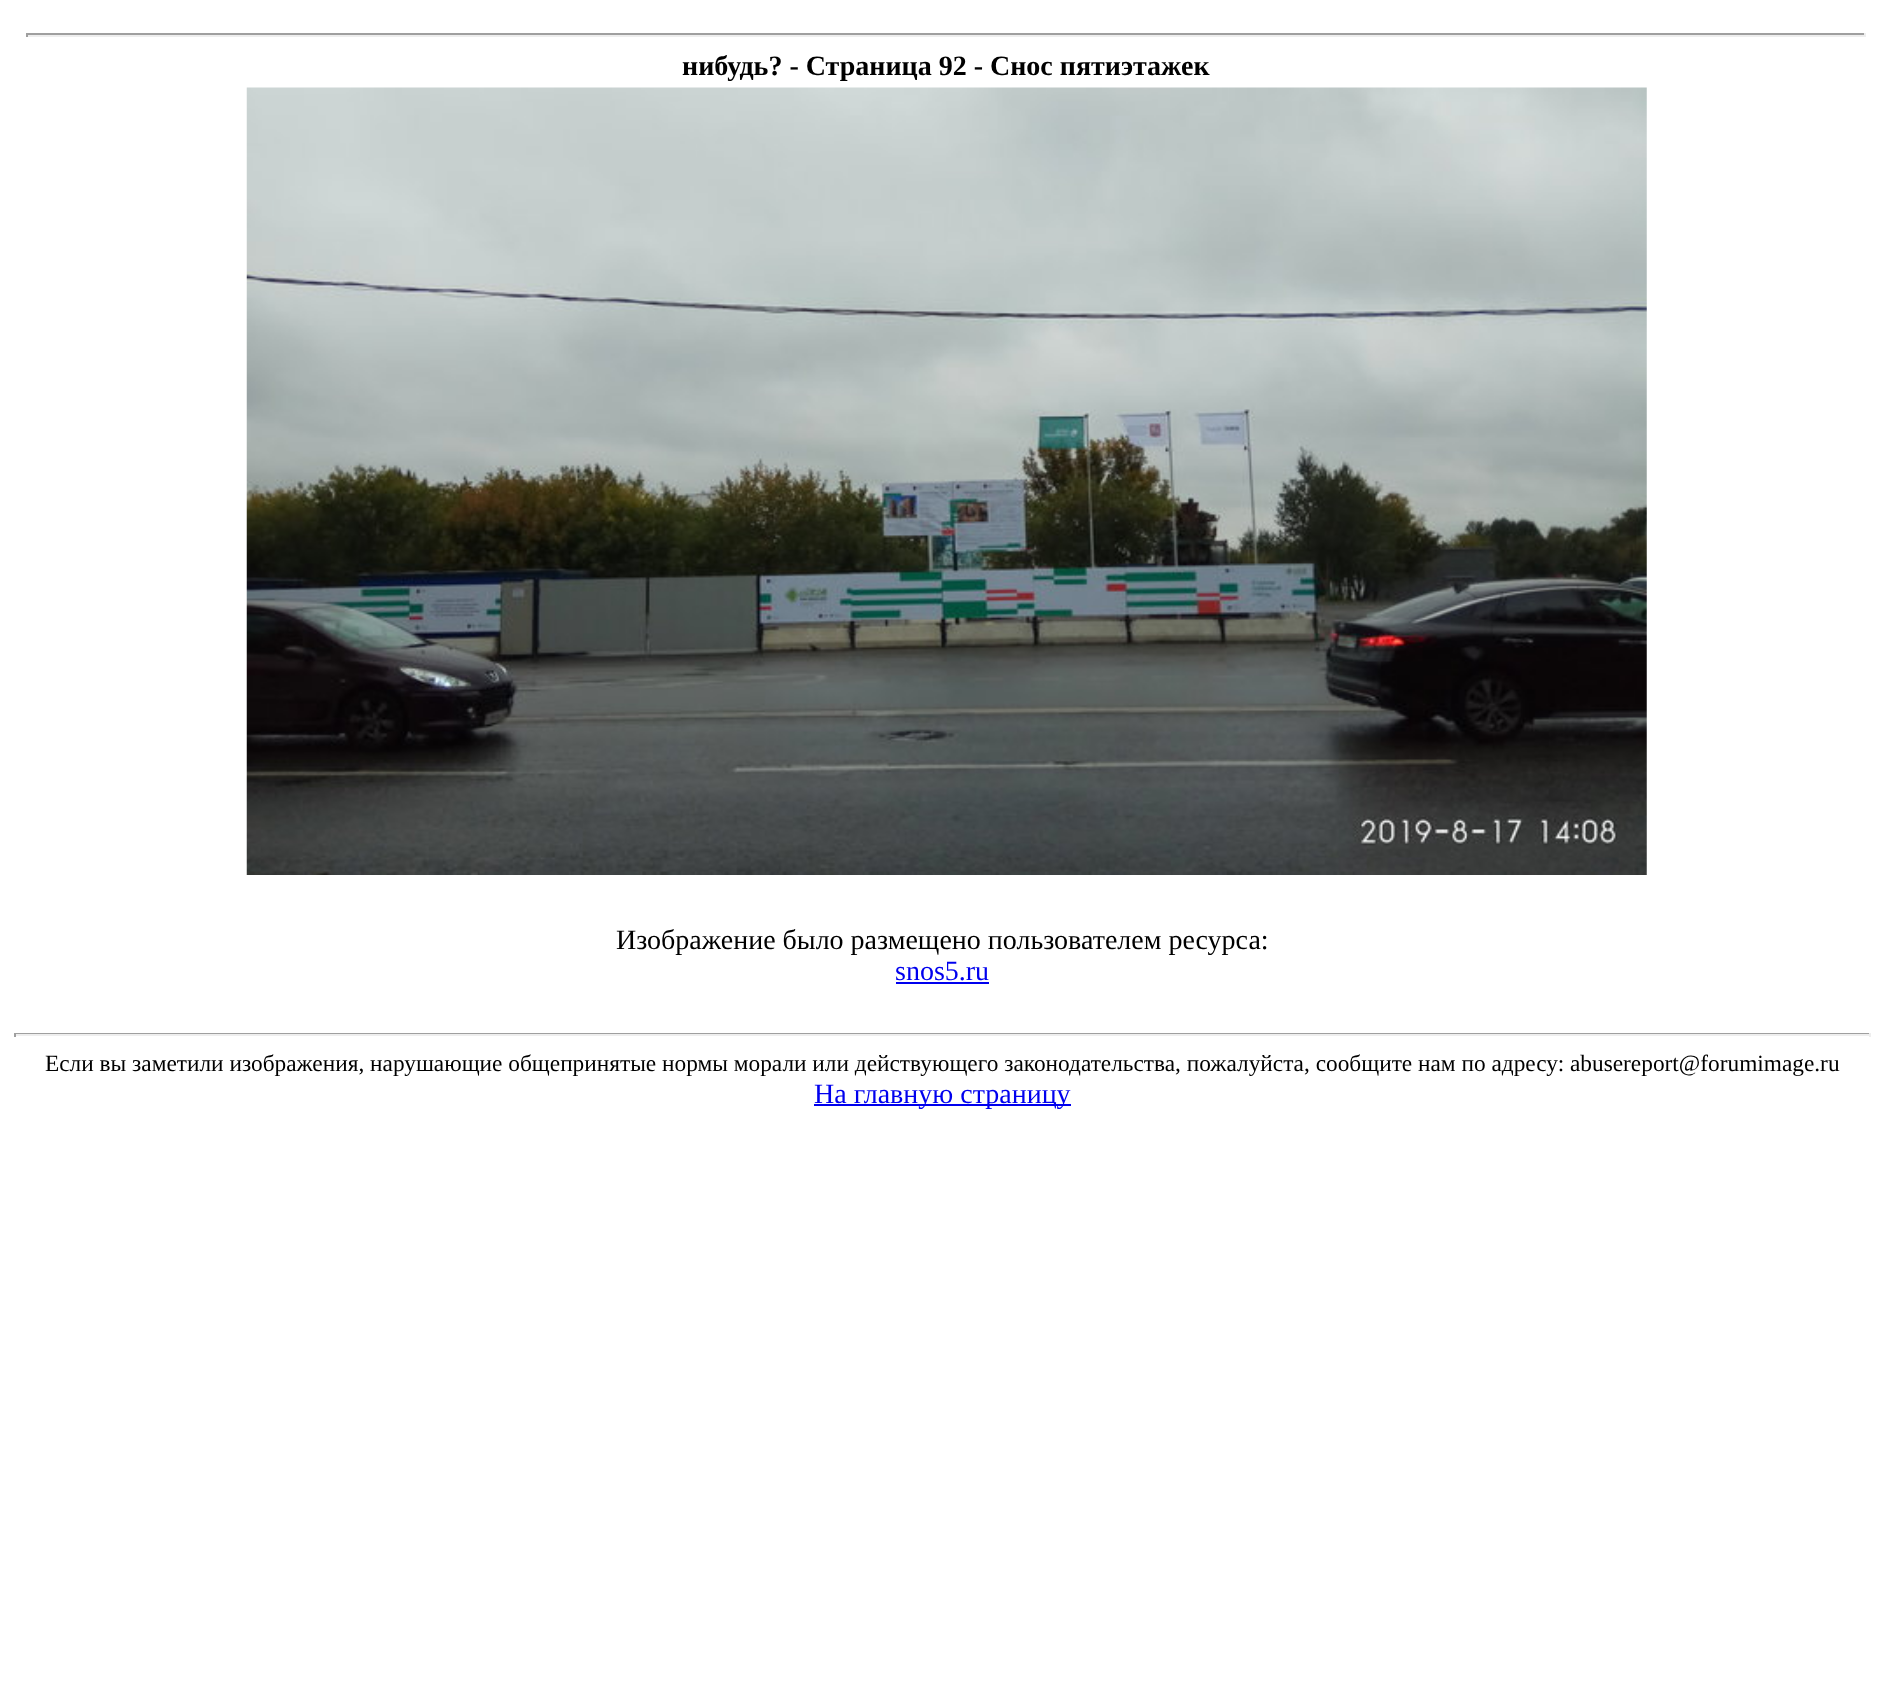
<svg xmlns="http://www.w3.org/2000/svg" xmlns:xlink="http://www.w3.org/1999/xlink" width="1884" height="1686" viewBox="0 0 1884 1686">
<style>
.cls-1{font:bold 28px Liberation Serif;fill:#000000}
.cls-2{font:28px Liberation Serif;fill:#000000}
.cls-3{font:28px Liberation Serif;fill:#0000ee}
.cls-4{font:23.33px Liberation Serif;fill:#000000}
</style>
<rect width="100%" height="100%" fill="#ffffff"/>
<rect fill="#9f9f9f" x="26" y="33" width="1840" height="2"/>
<rect fill="#eeeeee" x="1864" y="33" width="2" height="4"/>
<rect fill="#eeeeee" x="26" y="35" width="1840" height="2"/>
<rect fill="#9f9f9f" x="26" y="33" width="2" height="4"/>
<image xlink:href="image0.png" x="246" y="87" width="1401" height="788"/>
<rect fill="#0000ee" x="896" y="982" width="93" height="2"/>
<rect fill="#9f9f9f" x="14" y="1033" width="1857" height="1"/>
<rect fill="#eeeeee" x="1869" y="1033" width="2" height="4"/>
<rect fill="#eeeeee" x="14" y="1034" width="1857" height="2"/>
<rect fill="#9f9f9f" x="14" y="1033" width="2" height="4"/>
<rect fill="#0000ee" x="814" y="1104" width="257" height="2"/>
<text class="cls-1" x="682" y="75">нибудь? - Страница 92 - Снос пятиэтажек</text>
<text class="cls-2" x="616" y="949">Изображение было размещено пользователем ресурса:</text>
<text class="cls-3" x="895" y="980">snos5.ru</text>
<text class="cls-4" x="45" y="1071">Если вы заметили изображения, нарушающие общепринятые нормы морали или действующего законодательства, пожалуйста, сообщите нам по адресу: abusereport@forumimage.ru</text>
<text class="cls-3" x="814" y="1103">На главную страницу</text>
</svg>
